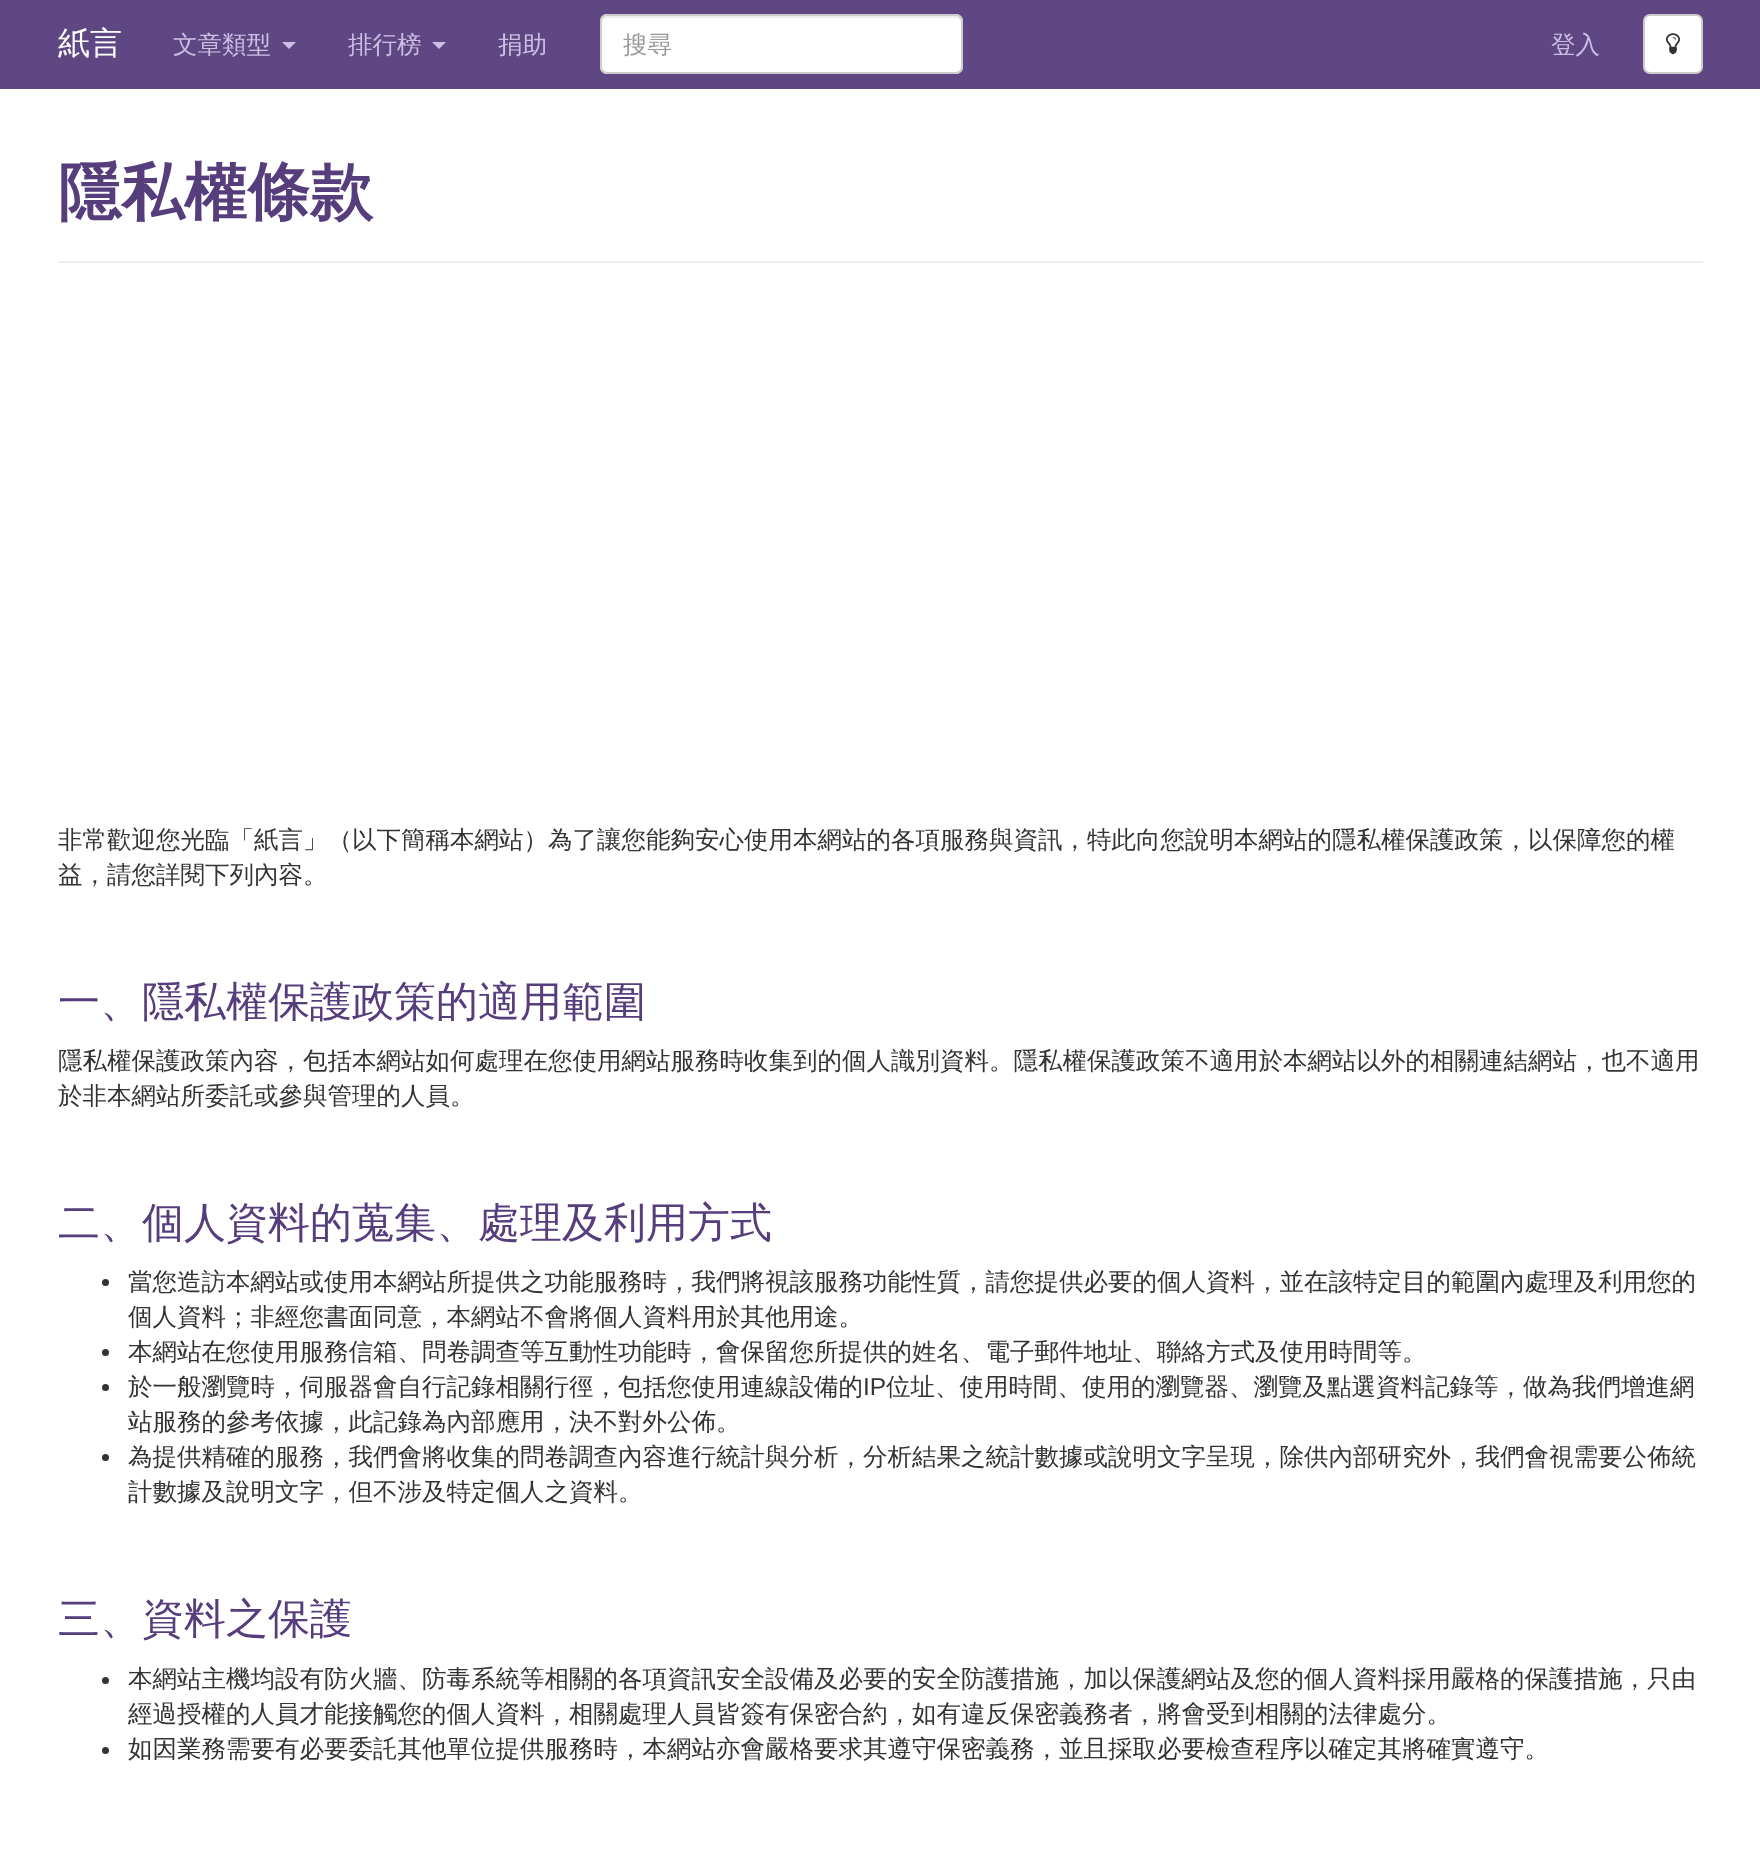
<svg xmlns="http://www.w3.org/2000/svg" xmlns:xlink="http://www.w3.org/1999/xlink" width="1760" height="1871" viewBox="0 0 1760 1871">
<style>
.cls-1{font:500 32px WenQuanYi Zen Hei;fill:#ffffff}
.cls-2{font:500 24.5px WenQuanYi Zen Hei;fill:#cdbfe3}
.cls-3{font:500 24.5px WenQuanYi Zen Hei;fill:#999999}
.cls-4{font:bold 63px WenQuanYi Zen Hei;fill:#563d7c}
.cls-5{font:500 24.5px WenQuanYi Zen Hei;fill:#333333}
.cls-6{font:500 42px WenQuanYi Zen Hei;fill:#563d7c}
.cls-7{font:24.5px Liberation Sans;fill:#333333}
</style>
<rect width="100%" height="100%" fill="#ffffff"/>
<rect fill="#5e4783" x="0" y="0" width="1760" height="89"/>
<path fill="#cdbfe3" d="M282 42H296L289 49Z"/>
<path fill="#cdbfe3" d="M432 42H446L439 49Z"/>
<rect fill="#ffffff" x="600" y="14" width="363" height="60" rx="7"/>
<path fill="#ececec" d="M607 18H956C958 18 961 20 961 23C961 20 960 16 956 16H607C603 16 602 20 602 23C602 20 604 18 607 18Z"/>
<rect fill="none" stroke="#cccccc" stroke-width="2" x="601" y="15" width="361" height="58" rx="6"/>
<rect fill="#ffffff" stroke="#cccccc" stroke-width="2" x="1644" y="15" width="58" height="58" rx="6"/>
<image xlink:href="image0.png" x="1666" y="33" width="14" height="22"/>
<rect fill="#eeeeee" x="58" y="261" width="1645" height="2"/>
<circle fill="#333333" cx="105.5" cy="1282.5" r="3.5"/>
<circle fill="#333333" cx="105.5" cy="1352.5" r="3.5"/>
<circle fill="#333333" cx="105.5" cy="1387.5" r="3.5"/>
<circle fill="#333333" cx="105.5" cy="1457.5" r="3.5"/>
<circle fill="#333333" cx="105.5" cy="1680.5" r="3.5"/>
<circle fill="#333333" cx="105.5" cy="1750.5" r="3.5"/>
<text class="cls-1" x="58" y="54">紙言</text>
<text class="cls-2" x="173" y="53">文章類型</text>
<text class="cls-2" x="348" y="53">排行榜</text>
<text class="cls-2" x="498" y="53">捐助</text>
<text class="cls-3" x="623" y="53">搜尋</text>
<text class="cls-2" x="1551" y="53">登入</text>
<text class="cls-4" x="58" y="214">隱私權條款</text>
<text class="cls-5"><tspan x="58" y="848">非常歡迎您光臨「紙言」（以下簡稱本網站）為了讓您能夠安心使用本網站的各項服務與資訊，特此向您說明本網站的隱私權保護政策，以保障您的權</tspan><tspan x="58" y="883">益，請您詳閱下列內容。</tspan></text>
<text class="cls-6" x="58" y="1016">一、隱私權保護政策的適用範圍</text>
<text class="cls-5"><tspan x="58" y="1069">隱私權保護政策內容，包括本網站如何處理在您使用網站服務時收集到的個人識別資料。隱私權保護政策不適用於本網站以外的相關連結網站，也不適用</tspan><tspan x="58" y="1104">於非本網站所委託或參與管理的人員。</tspan></text>
<text class="cls-6" x="58" y="1237">二、個人資料的蒐集、處理及利用方式</text>
<text class="cls-5"><tspan x="128" y="1290">當您造訪本網站或使用本網站所提供之功能服務時，我們將視該服務功能性質，請您提供必要的個人資料，並在該特定目的範圍內處理及利用您的</tspan><tspan x="128" y="1325">個人資料；非經您書面同意，本網站不會將個人資料用於其他用途。</tspan><tspan x="128" y="1360">本網站在您使用服務信箱、問卷調查等互動性功能時，會保留您所提供的姓名、電子郵件地址、聯絡方式及使用時間等。</tspan><tspan x="128" y="1395">於一般瀏覽時，伺服器會自行記錄相關行徑，包括您使用連線設備的</tspan></text>
<text class="cls-7" x="863" y="1395">IP</text>
<text class="cls-5" x="886" y="1395">位址、使用時間、使用的瀏覽器、瀏覽及點選資料記錄等，做為我們增進網</text>
<text class="cls-5"><tspan x="128" y="1430">站服務的參考依據，此記錄為內部應用，決不對外公佈。</tspan><tspan x="128" y="1465">為提供精確的服務，我們會將收集的問卷調查內容進行統計與分析，分析結果之統計數據或說明文字呈現，除供內部研究外，我們會視需要公佈統</tspan><tspan x="128" y="1500">計數據及說明文字，但不涉及特定個人之資料。</tspan></text>
<text class="cls-6" x="58" y="1633">三、資料之保護</text>
<text class="cls-5"><tspan x="128" y="1687">本網站主機均設有防火牆、防毒系統等相關的各項資訊安全設備及必要的安全防護措施，加以保護網站及您的個人資料採用嚴格的保護措施，只由</tspan><tspan x="128" y="1722">經過授權的人員才能接觸您的個人資料，相關處理人員皆簽有保密合約，如有違反保密義務者，將會受到相關的法律處分。</tspan><tspan x="128" y="1757">如因業務需要有必要委託其他單位提供服務時，本網站亦會嚴格要求其遵守保密義務，並且採取必要檢查程序以確定其將確實遵守。</tspan></text>
</svg>
